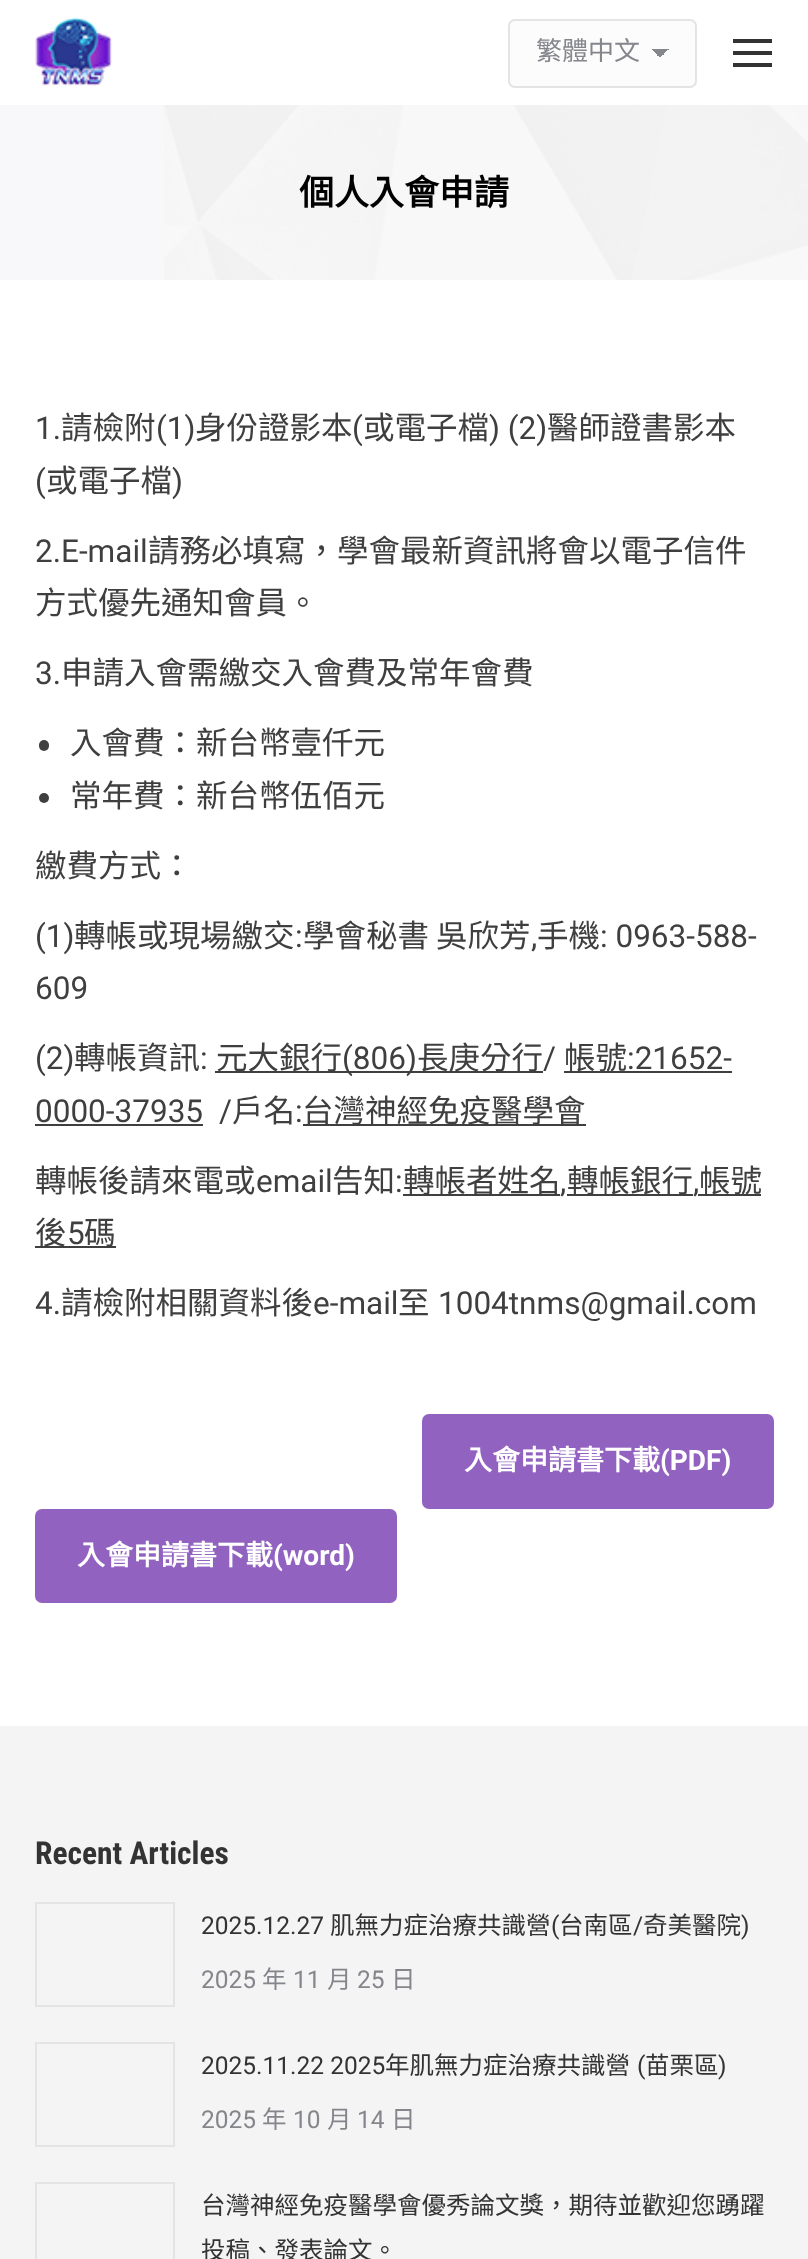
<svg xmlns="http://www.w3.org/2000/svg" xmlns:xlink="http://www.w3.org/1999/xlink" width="808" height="2259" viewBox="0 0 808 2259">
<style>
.cls-1{font:26px Noto Sans CJK TC;fill:#85868c}
.cls-2{font:bold 35px Noto Sans CJK TC;fill:#000000}
.cls-3{font:31.5px Roboto;fill:#3f3f3f}
.cls-4{font:31.5px Noto Sans CJK TC;fill:#3f3f3f}
.cls-5{font:bold 28px Noto Sans CJK TC;fill:#ffffff}
.cls-6{font:bold 28px Roboto;fill:#ffffff}
.cls-7{font:bold 31.5px Roboto Condensed;fill:#333333}
.cls-8{font:24.5px Roboto;fill:#333333}
.cls-9{font:24.5px Noto Sans CJK TC;fill:#333333}
.cls-10{font:24.5px Roboto;fill:#85868c}
.cls-11{font:24.5px Noto Sans CJK TC;fill:#85868c}
</style>
<defs>
<linearGradient id="g1" gradientUnits="userSpaceOnUse" x1="660" y1="49" x2="669" y2="58"><stop offset="0.5" stop-color="#85868c"/><stop offset="0.5" stop-color="#fcfcfc"/></linearGradient>
<linearGradient id="g2" gradientUnits="userSpaceOnUse" x1="651" y1="58" x2="660" y2="49"><stop offset="0.5" stop-color="#fcfcfc"/><stop offset="0.5" stop-color="#85868c"/></linearGradient>
</defs>
<rect width="100%" height="100%" fill="#ffffff"/>
<image xlink:href="image0.png" x="35" y="17" width="77" height="69"/>
<rect fill="#fcfcfc" x="508" y="19" width="189" height="69" rx="7"/>
<rect fill="url(#g1)" x="660" y="49" width="9" height="8"/>
<rect fill="url(#g2)" x="651" y="49" width="9" height="8"/>
<rect fill="none" stroke="#e4e4e4" stroke-width="2" x="509" y="20" width="187" height="67" rx="6"/>
<rect fill="#333333" x="733" y="39" width="39" height="4"/>
<rect fill="#333333" x="733" y="51" width="39" height="4"/>
<rect fill="#333333" x="733" y="63" width="39" height="4"/>
<rect fill="#f8f7f9" x="0" y="105" width="808" height="175"/>
<image xlink:href="image1.png" x="164" y="105" width="644" height="175"/>
<rect fill="#3f3f3f" x="39" y="740" width="10" height="11" rx="5"/>
<circle fill="#3f3f3f" cx="44" cy="798" r="5"/>
<rect fill="#3f3f3f" x="215" y="1071" width="328" height="2"/>
<rect fill="#3f3f3f" x="564" y="1071" width="168" height="2"/>
<rect fill="#3f3f3f" x="35" y="1124" width="168" height="2"/>
<rect fill="#3f3f3f" x="303" y="1124" width="283" height="2"/>
<rect fill="#3f3f3f" x="403" y="1194" width="157" height="2"/>
<rect fill="#3f3f3f" x="567" y="1194" width="126" height="2"/>
<rect fill="#3f3f3f" x="698" y="1194" width="63" height="2"/>
<rect fill="#3f3f3f" x="35" y="1246" width="81" height="2"/>
<rect fill="#9262c1" x="422" y="1414" width="352" height="95" rx="7"/>
<rect fill="#9262c1" x="35" y="1509" width="362" height="94" rx="7"/>
<rect fill="#f4f4f4" x="0" y="1726" width="808" height="533"/>
<rect fill="none" stroke="#e3e4e4" stroke-width="2" x="36" y="1903" width="138" height="103"/>
<rect fill="none" stroke="#e3e4e4" stroke-width="2" x="36" y="2043" width="138" height="103"/>
<rect fill="none" stroke="#e3e4e4" stroke-width="2" x="36" y="2183" width="138" height="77"/>
<text class="cls-1" x="536" y="60">繁體中文</text>
<text class="cls-2" x="299" y="205">個人入會申請</text>
<text class="cls-3" x="35" y="439">1.</text>
<text class="cls-4" x="61" y="439">請檢附</text>
<text class="cls-3" x="156" y="439">(1)</text>
<text class="cls-4" x="195" y="439">身份證影本</text>
<text class="cls-3" x="352" y="439">(</text>
<text class="cls-4" x="363" y="439">或電子檔</text>
<text class="cls-3" x="489" y="439">) (2)</text>
<text class="cls-4" x="547" y="439">醫師證書影本</text>
<text class="cls-3" x="35" y="492">(</text>
<text class="cls-4" x="46" y="492">或電子檔</text>
<text class="cls-3" x="172" y="492">)</text>
<text class="cls-3" x="35" y="562">2.E-mail</text>
<text class="cls-4" x="148" y="562">請務必填寫，學會最新資訊將會以電子信件</text>
<text class="cls-4" x="35" y="614">方式優先通知會員。</text>
<text class="cls-3" x="35" y="684">3.</text>
<text class="cls-4" x="61" y="684">申請入會需繳交入會費及常年會費</text>
<text class="cls-4"><tspan x="70" y="754">入會費：新台幣壹仟元</tspan><tspan x="70" y="807">常年費：新台幣伍佰元</tspan></text>
<text class="cls-4" x="35" y="877">繳費方式：</text>
<text class="cls-3" x="35" y="947">(1)</text>
<text class="cls-4" x="74" y="947">轉帳或現場繳交</text>
<text class="cls-3" x="295" y="947">:</text>
<text class="cls-4" x="303" y="947">學會秘書</text>
<text class="cls-4" x="436" y="947">吳欣芳</text>
<text class="cls-3" x="531" y="947">,</text>
<text class="cls-4" x="537" y="947">手機</text>
<text class="cls-3" x="600" y="947">: 0963-588-</text>
<text class="cls-3" x="35" y="999">609</text>
<text class="cls-3" x="35" y="1069">(2)</text>
<text class="cls-4" x="74" y="1069">轉帳資訊</text>
<text class="cls-3" x="200" y="1069">:</text>
<text class="cls-4" x="216" y="1069">元大銀行</text>
<text class="cls-3" x="342" y="1069">(806)</text>
<text class="cls-4" x="417" y="1069">長庚分行</text>
<text class="cls-3" x="543" y="1069">/</text>
<text class="cls-4" x="564" y="1069">帳號</text>
<text class="cls-3" x="627" y="1069">:21652-</text>
<text class="cls-3" x="35" y="1122">0000-37935</text>
<text class="cls-3" x="219" y="1122">/</text>
<text class="cls-4" x="232" y="1122">戶名</text>
<text class="cls-3" x="295" y="1122">:</text>
<text class="cls-4" x="302" y="1122">台灣神經免疫醫學會</text>
<text class="cls-4" x="35" y="1192">轉帳後請來電或</text>
<text class="cls-3" x="256" y="1192">email</text>
<text class="cls-4" x="332" y="1192">告知</text>
<text class="cls-3" x="395" y="1192">:</text>
<text class="cls-4" x="403" y="1192">轉帳者姓名</text>
<text class="cls-3" x="560" y="1192">,</text>
<text class="cls-4" x="567" y="1192">轉帳銀行</text>
<text class="cls-3" x="693" y="1192">,</text>
<text class="cls-4" x="699" y="1192">帳號</text>
<text class="cls-4" x="35" y="1244">後</text>
<text class="cls-3" x="67" y="1244">5</text>
<text class="cls-4" x="84" y="1244">碼</text>
<text class="cls-3" x="35" y="1314">4.</text>
<text class="cls-4" x="61" y="1314">請檢附相關資料後</text>
<text class="cls-3" x="313" y="1314">e-mail</text>
<text class="cls-4" x="398" y="1314">至</text>
<text class="cls-3" x="438" y="1314">1004tnms@gmail.com</text>
<text class="cls-5" x="464" y="1470">入會申請書下載</text>
<text class="cls-6" x="660" y="1470">(PDF)</text>
<text class="cls-5" x="77" y="1565">入會申請書下載</text>
<text class="cls-6" x="273" y="1565">(word)</text>
<text class="cls-7" x="35" y="1864">Recent Articles</text>
<text class="cls-8" x="201" y="1934">2025.12.27</text>
<text class="cls-9" x="330" y="1934">肌無力症治療共識營</text>
<text class="cls-8" x="551" y="1934">(</text>
<text class="cls-9" x="559" y="1934">台南區</text>
<text class="cls-8" x="633" y="1934">/</text>
<text class="cls-9" x="643" y="1934">奇美醫院</text>
<text class="cls-8" x="741" y="1934">)</text>
<text class="cls-10" x="201" y="1988">2025</text>
<text class="cls-11" x="262" y="1988">年</text>
<text class="cls-10" x="293" y="1988">11</text>
<text class="cls-11" x="327" y="1988">月</text>
<text class="cls-10" x="357" y="1988">25</text>
<text class="cls-11" x="391" y="1988">日</text>
<text class="cls-8" x="201" y="2074">2025.11.22 2025</text>
<text class="cls-9" x="385" y="2074">年肌無力症治療共識營</text>
<text class="cls-8" x="637" y="2074">(</text>
<text class="cls-9" x="645" y="2074">苗栗區</text>
<text class="cls-8" x="718" y="2074">)</text>
<text class="cls-10" x="201" y="2128">2025</text>
<text class="cls-11" x="262" y="2128">年</text>
<text class="cls-10" x="293" y="2128">10</text>
<text class="cls-11" x="327" y="2128">月</text>
<text class="cls-10" x="357" y="2128">14</text>
<text class="cls-11" x="391" y="2128">日</text>
<text class="cls-9"><tspan x="201" y="2214">台灣神經免疫醫學會優秀論文獎，期待並歡迎您踴躍</tspan><tspan x="201" y="2259">投稿、發表論文。</tspan></text>
</svg>
